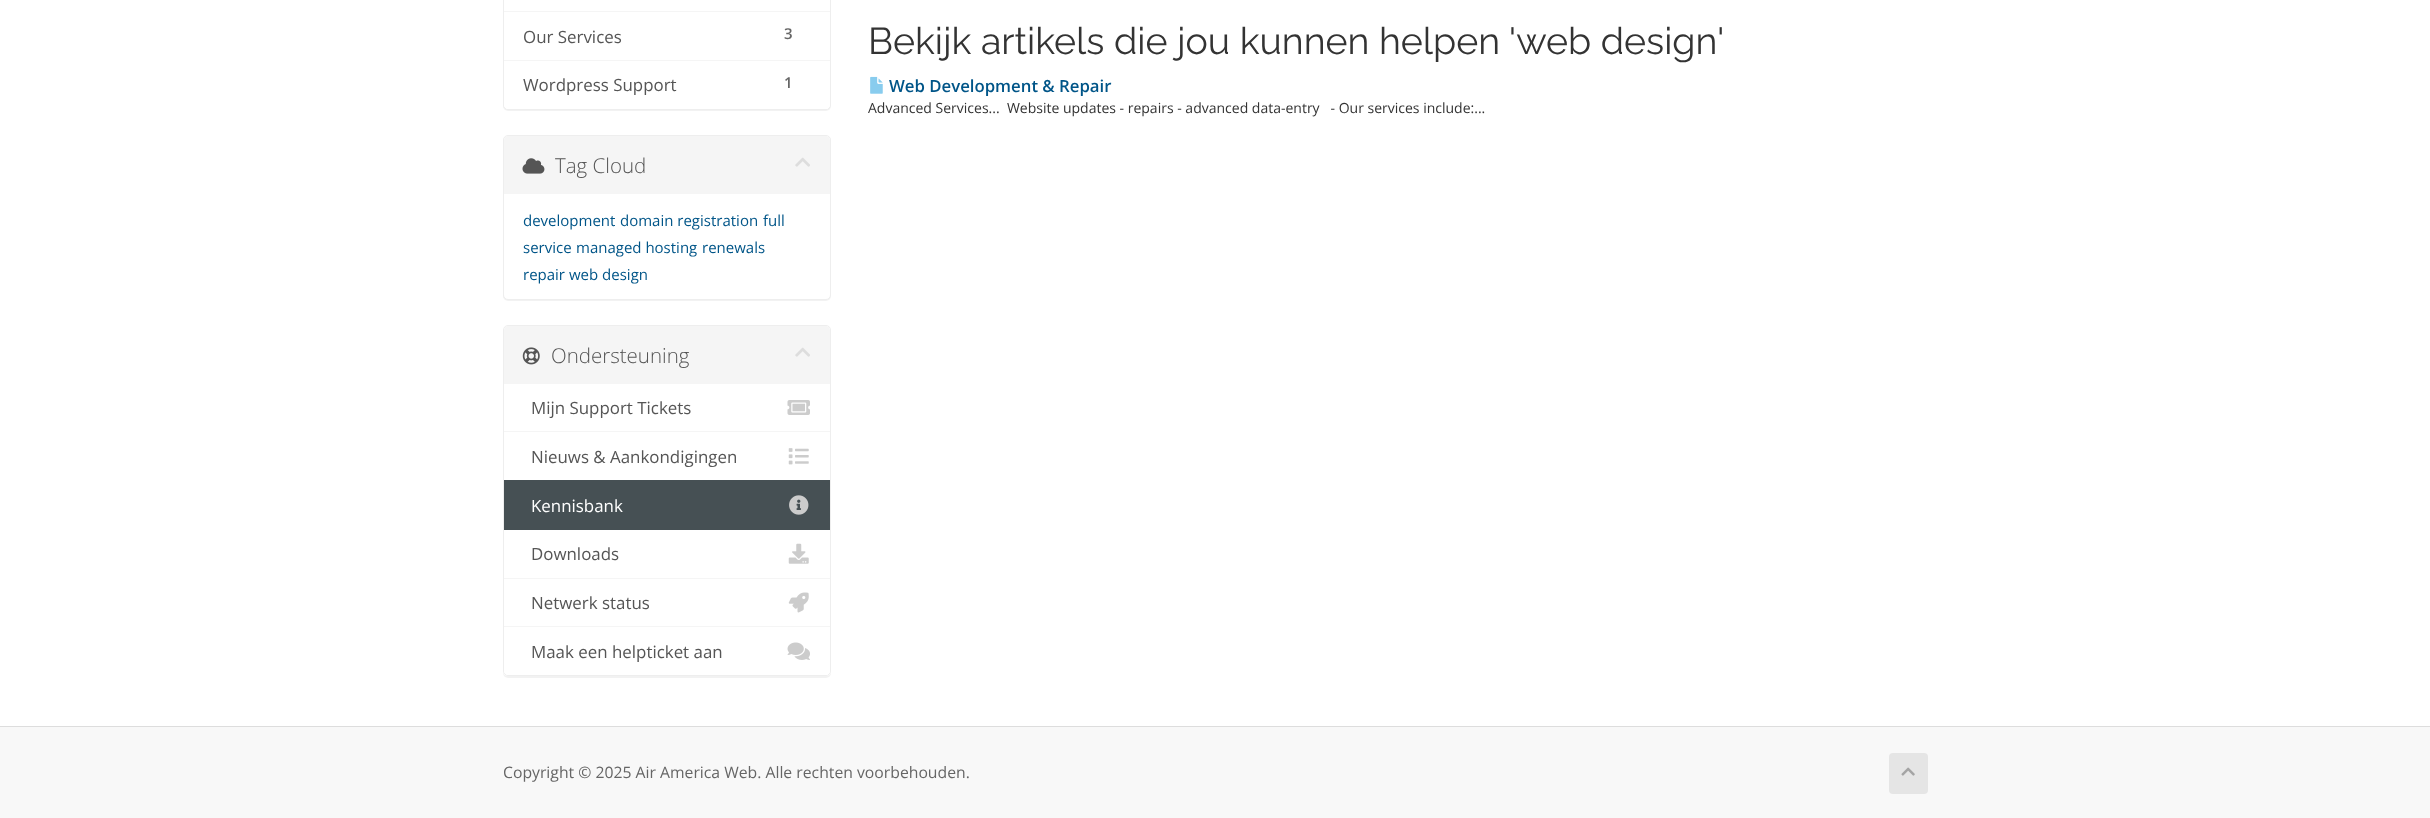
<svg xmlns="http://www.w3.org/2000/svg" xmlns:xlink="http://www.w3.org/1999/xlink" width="2430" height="818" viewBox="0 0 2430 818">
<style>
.cls-1{font:16.9px Open Sans;fill:#555555}
.cls-2{font:600 15px Open Sans;fill:#666666}
.cls-3{font:37.5px Raleway;fill:#333333}
.cls-4{font:600 16.75px Open Sans;fill:#005588}
.cls-5{font:14px Open Sans;fill:#333333}
.cls-6{font:300 20.5px Open Sans;fill:#555555}
.cls-7{font:15px Open Sans;fill:#005588}
.cls-8{font:16.9px Open Sans;fill:#ffffff}
.cls-9{font:15.75px Open Sans;fill:#666666}
</style>
<defs>
<clipPath id="clip1"><path d="M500 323H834V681H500ZM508 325H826C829 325 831 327 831 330V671C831 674 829 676 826 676H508C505 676 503 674 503 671V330C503 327 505 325 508 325Z" clip-rule="evenodd"/></clipPath>
</defs>
<rect width="100%" height="100%" fill="#f8f8f8"/>
<rect fill="#ffffff" x="0" y="0" width="2430" height="726"/>
<rect fill="#000000" fill-opacity="0.05" filter="blur(0.5px)" x="503" y="-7" width="328" height="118" rx="5"/>
<rect fill="#ffffff" stroke="#eeeeee" x="503.5" y="-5.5" width="327" height="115" rx="4.5"/>
<rect fill="#f5f5f5" x="504" y="11" width="326" height="1"/>
<path fill="#ffffff" d="M504 60H830V105C830 107 828 109 826 109H508C506 109 504 107 504 105Z"/>
<rect fill="#f5f5f5" x="504" y="60" width="326" height="1"/>
<image xlink:href="image0.png" x="870" y="76" width="13" height="18"/>
<rect fill="#000000" fill-opacity="0.05" filter="blur(0.5px)" x="503" y="136" width="328" height="165" rx="5"/>
<rect fill="#ffffff" stroke="#eeeeee" x="503.5" y="135.5" width="327" height="164" rx="4.5"/>
<path fill="#f5f5f5" d="M508 136H826C828 136 830 138 830 140V194H504V140C504 138 506 136 508 136Z"/>
<image xlink:href="image1.png" x="522" y="158" width="23" height="16"/>
<image xlink:href="image2.png" x="795" y="157" width="15" height="10"/>
<g clip-path="url(#clip1)">
<rect fill="#000000" fill-opacity="0.05" filter="blur(0.5px)" x="503" y="326" width="328" height="352" rx="5"/>
</g>
<rect fill="none" stroke="#eeeeee" x="503.5" y="325.5" width="327" height="350" rx="4.5"/>
<path fill="#f5f5f5" d="M508 326H826C828 326 830 328 830 330V384H504V330C504 328 506 326 508 326Z"/>
<image xlink:href="image3.png" x="522" y="347" width="18" height="18"/>
<image xlink:href="image2.png" x="795" y="347" width="15" height="10"/>
<rect fill="#f5f5f5" x="504" y="431" width="326" height="1"/>
<image xlink:href="image4.png" x="787" y="400" width="23" height="15"/>
<image xlink:href="image5.png" x="788" y="448" width="21" height="17"/>
<rect fill="#465054" x="504" y="480" width="326" height="50"/>
<image xlink:href="image6.png" x="789" y="495" width="20" height="20"/>
<rect fill="#f5f5f5" x="504" y="578" width="326" height="1"/>
<image xlink:href="image7.png" x="788" y="543" width="21" height="21"/>
<image xlink:href="image8.png" x="788" y="592" width="21" height="21"/>
<path fill="#ffffff" d="M504 626H830V671C830 673 828 675 826 675H508C506 675 504 673 504 671Z"/>
<rect fill="#f5f5f5" x="504" y="626" width="326" height="1"/>
<image xlink:href="image9.png" x="787" y="642" width="23" height="18"/>
<rect fill="#dddddd" x="0" y="726" width="2430" height="1"/>
<rect fill="#e5e5e5" x="1889" y="753" width="39" height="41" rx="4"/>
<image xlink:href="image10.png" x="1901" y="767" width="14" height="9"/>
<text class="cls-1" x="523" y="43">Our Services</text>
<text class="cls-2" x="784" y="39">3</text>
<text class="cls-1" x="523" y="91">Wordpress Support</text>
<text class="cls-2" x="784" y="88">1</text>
<text class="cls-3" x="868" y="54">Bekijk artikels die jou kunnen helpen 'web design'</text>
<text class="cls-4" x="889" y="92">Web Development &amp; Repair</text>
<text class="cls-5" xml:space="preserve" x="868" y="113">Advanced Services...  Website updates - repairs - advanced data-entry   - Our services include:...</text>
<text class="cls-6" x="555" y="173">Tag Cloud</text>
<text class="cls-7" x="523" y="226">development</text>
<text class="cls-7" x="620" y="226">domain registration</text>
<text class="cls-7" x="763" y="226">full</text>
<text class="cls-7" x="523" y="253">service</text>
<text class="cls-7" x="576" y="253">managed hosting</text>
<text class="cls-7" x="702" y="253">renewals</text>
<text class="cls-7" x="523" y="280">repair</text>
<text class="cls-7" x="569" y="280">web design</text>
<text class="cls-6" x="551" y="363">Ondersteuning</text>
<text class="cls-1" x="531" y="414">Mijn Support Tickets</text>
<text class="cls-1" x="531" y="463">Nieuws &amp; Aankondigingen</text>
<text class="cls-8" x="531" y="512">Kennisbank</text>
<text class="cls-1" x="531" y="560">Downloads</text>
<text class="cls-1" x="531" y="609">Netwerk status</text>
<text class="cls-1" x="531" y="658">Maak een helpticket aan</text>
<text class="cls-9" x="503" y="778">Copyright © 2025 Air America Web. Alle rechten voorbehouden.</text>
</svg>
